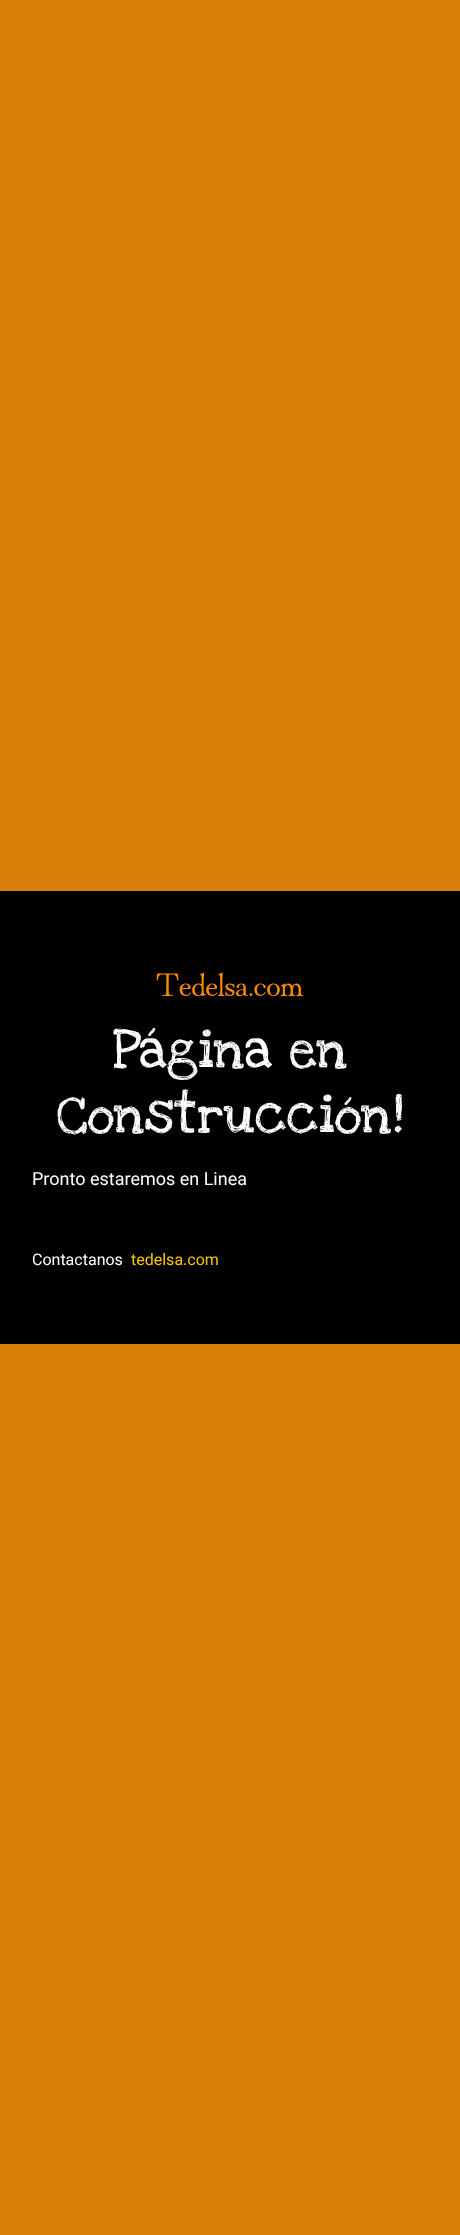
<svg xmlns="http://www.w3.org/2000/svg" xmlns:xlink="http://www.w3.org/1999/xlink" width="460" height="2235" viewBox="0 0 460 2235">
<style>
.cls-1{font:33px Hina Mincho;fill:#fb8c00}
.cls-2{font:54px Love Ya Like A Sister;fill:#ffffff}
.cls-3{font:18px Roboto;fill:#ffffff}
.cls-4{font:16px Roboto;fill:#ffffff}
.cls-5{font:16px Roboto;fill:#fdc802}
</style>
<rect width="100%" height="100%" fill="#db7d09"/>
<rect fill="#000000" x="0" y="891" width="460" height="453"/>
<text class="cls-1" x="156" y="996">Tedelsa.com</text>
<text class="cls-2" x="113" y="1067">Página en</text>
<text class="cls-2" x="57" y="1132">Construcción!</text>
<text class="cls-3" x="32" y="1185">Pronto estaremos en Linea</text>
<text class="cls-4" x="32" y="1265">Contactanos</text>
<text class="cls-5" x="131" y="1265">tedelsa.com</text>
</svg>
